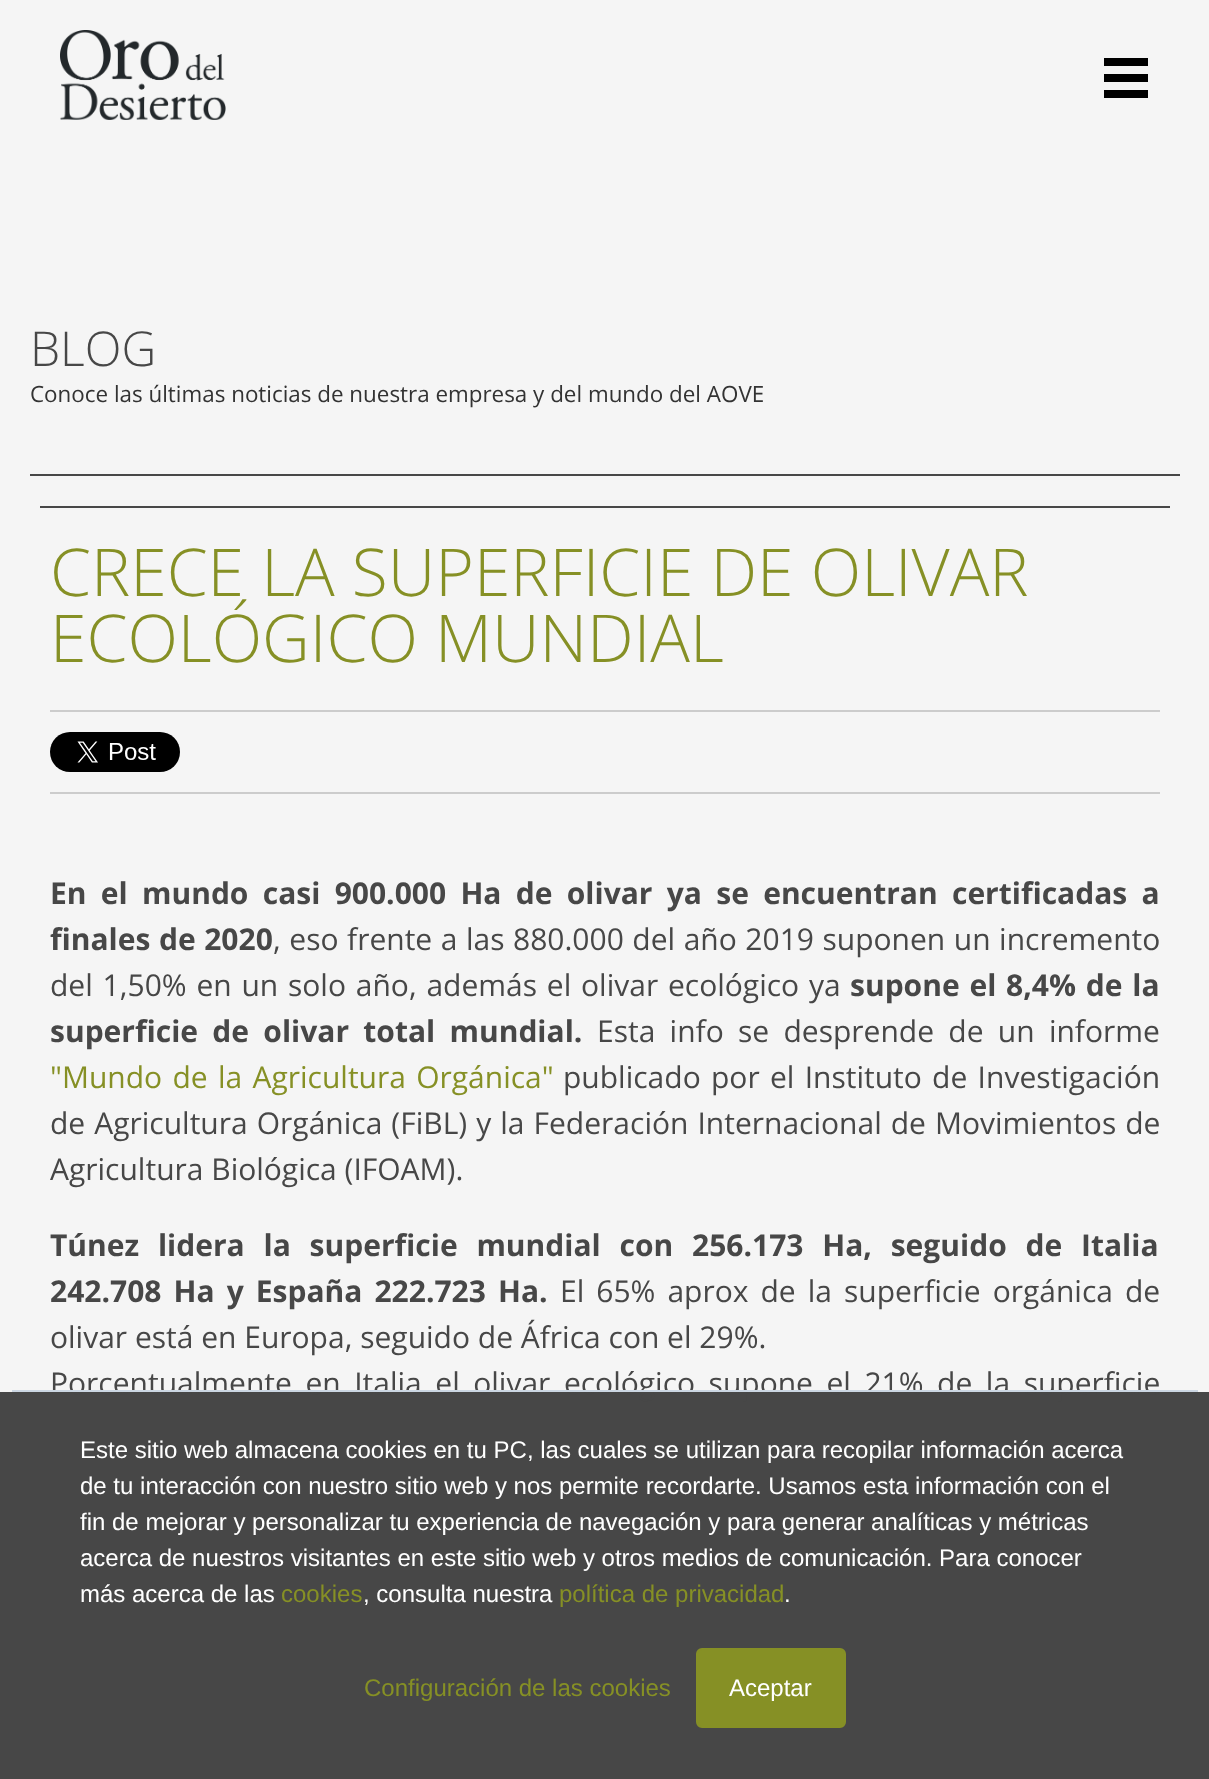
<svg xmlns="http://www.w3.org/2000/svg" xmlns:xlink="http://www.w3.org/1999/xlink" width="1209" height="1779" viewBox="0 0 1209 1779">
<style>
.cls-1{font:300 48px Open Sans;fill:#474747}
.cls-2{font:22.4px Open Sans;fill:#333333}
.cls-3{font:300 66px Open Sans;fill:#869025}
.cls-4{font:bold 30px Open Sans;fill:#474747}
.cls-5{font:30px Open Sans;fill:#474747}
.cls-6{font:30px Open Sans;fill:#869025}
.cls-7{font:24px Liberation Sans;fill:#ffffff}
.cls-8{font:24px Liberation Sans;fill:#869025}
</style>
<rect width="100%" height="100%" fill="#f5f5f5"/>
<image xlink:href="image0.png" x="60" y="30" width="166" height="90"/>
<rect fill="#000000" x="1104" y="74" width="44" height="8"/>
<rect fill="#000000" x="1104" y="58" width="44" height="8"/>
<rect fill="#000000" x="1104" y="90" width="44" height="8"/>
<rect fill="#474747" x="30" y="474" width="1150" height="2"/>
<rect fill="#474747" x="40" y="506" width="1130" height="2"/>
<rect fill="#cccccc" x="50" y="710" width="1110" height="2"/>
<rect fill="#cccccc" x="50" y="792" width="1110" height="2"/>
<image xlink:href="image1.png" x="50" y="732" width="130" height="40"/>
<rect fill="#474747" x="0" y="1392" width="1209" height="387"/>
<rect fill="#869025" stroke="#869025" stroke-width="2" x="697" y="1649" width="148" height="78" rx="5"/>
<text class="cls-1" x="30" y="366">BLOG</text>
<text class="cls-2" x="30" y="402">Conoce las últimas noticias de nuestra empresa y del mundo del AOVE</text>
<text class="cls-3"><tspan x="50" y="596">CRECE LA SUPERFICIE DE OLIVAR</tspan><tspan x="50" y="662">ECOLÓGICO MUNDIAL</tspan></text>
<text class="cls-4"><tspan x="50" y="904" word-spacing="6.5">En el mundo casi 900.000 Ha de olivar ya se encuentran certificadas a</tspan><tspan x="50" y="950" word-spacing="0.75">finales de 2020</tspan></text>
<text class="cls-5" x="273" y="950" word-spacing="0.75">, eso frente a las 880.000 del año 2019 suponen un incremento</text>
<text class="cls-5" x="50" y="996" word-spacing="2">del 1,50% en un solo año, además el olivar ecológico ya</text>
<text class="cls-4" x="850" y="996" word-spacing="2">supone el 8,4% de la</text>
<text class="cls-4" x="50" y="1042" word-spacing="6.5">superficie de olivar total mundial.</text>
<text class="cls-5" x="597" y="1042" word-spacing="6.5">Esta info se desprende de un informe</text>
<text class="cls-6" x="50" y="1088" word-spacing="2.5">"Mundo de la Agricultura Orgánica"</text>
<text class="cls-5" x="563" y="1088" word-spacing="2.5">publicado por el Instituto de Investigación</text>
<text class="cls-5"><tspan x="50" y="1134" word-spacing="1.25">de Agricultura Orgánica (FiBL) y la Federación Internacional de Movimientos de</tspan><tspan x="50" y="1180">Agricultura Biológica (IFOAM).</tspan></text>
<text class="cls-4"><tspan x="50" y="1256" word-spacing="11">Túnez lidera la superficie mundial con 256.173 Ha, seguido de Italia</tspan><tspan x="50" y="1302" word-spacing="4.25">242.708 Ha y España 222.723 Ha.</tspan></text>
<text class="cls-5" x="560" y="1302" word-spacing="4.25">El 65% aprox de la superficie orgánica de</text>
<text class="cls-5"><tspan x="50" y="1348">olivar está en Europa, seguido de África con el 29%.</tspan><tspan x="50" y="1394" word-spacing="5.75">Porcentualmente en Italia el olivar ecológico supone el 21% de la superficie</tspan></text>
<rect fill="#cbd6e2" x="12" y="1390" width="1186" height="2"/>
<text class="cls-7"><tspan x="80" y="1458">Este sitio web almacena cookies en tu PC, las cuales se utilizan para recopilar información acerca</tspan><tspan x="80" y="1494">de tu interacción con nuestro sitio web y nos permite recordarte. Usamos esta información con el</tspan><tspan x="80" y="1530">fin de mejorar y personalizar tu experiencia de navegación y para generar analíticas y métricas</tspan><tspan x="80" y="1566">acerca de nuestros visitantes en este sitio web y otros medios de comunicación. Para conocer</tspan><tspan x="80" y="1602">más acerca de las</tspan></text>
<text class="cls-8" x="281" y="1602">cookies</text>
<text class="cls-7" x="363" y="1602">, consulta nuestra</text>
<text class="cls-8" x="559" y="1602">política de privacidad</text>
<text class="cls-7" x="784" y="1602">.</text>
<text class="cls-8" x="364" y="1696">Configuración de las cookies</text>
<text class="cls-7" x="729" y="1696">Aceptar</text>
</svg>
